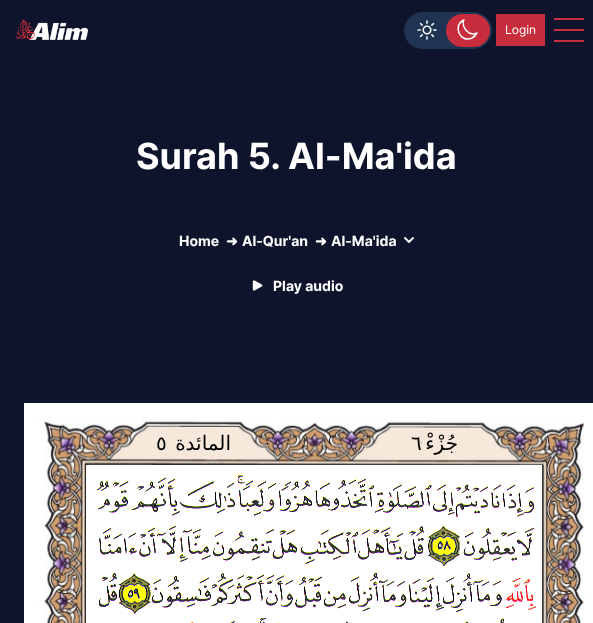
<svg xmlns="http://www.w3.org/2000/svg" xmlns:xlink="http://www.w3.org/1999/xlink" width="593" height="623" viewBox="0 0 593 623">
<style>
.cls-1{font:12px Inter;fill:#ffffff}
.cls-2{font:bold 36px Inter;fill:#ffffff}
.cls-3{font:bold 14px Inter;fill:#ffffff}
.cls-4{font:bold 14px DejaVu Sans;fill:#ffffff}
.cls-5{font:20px DejaVu Sans;fill:#000000}
.cls-6{font:20px DejaVu Sans;direction:rtl;fill:#000000}
</style>
<rect width="100%" height="100%" fill="#0d142c"/>
<image xlink:href="image0.png" x="16" y="20" width="72" height="20"/>
<rect fill="#1f3352" x="404" y="12" width="88" height="37" rx="18.5"/>
<rect fill="#c72d3c" stroke="#c72d3c" stroke-width="10" x="451" y="19" width="34" height="23" rx="11.5"/>
<image xlink:href="image1.png" x="417" y="20" width="20" height="20"/>
<path fill="none" stroke="#ffffff" stroke-width="1.5" stroke-linecap="round" stroke-linejoin="round" d="M477 33C469 36.5 462 28.5 463.5 20.5L464 20C452 25 460 43.5 472 38C474 37 476 35 476.5 33Z"/>
<rect fill="#c72d3c" x="496" y="14" width="49" height="32"/>
<rect fill="#c72d3c" x="554" y="18" width="30" height="2"/>
<rect fill="#c72d3c" x="554" y="29" width="30" height="2"/>
<rect fill="#c72d3c" x="554" y="40" width="30" height="2"/>
<path fill="none" stroke="#ffffff" stroke-width="1.9" stroke-linecap="round" stroke-linejoin="round" d="M405 238L409 242L413 238"/>
<image xlink:href="image2.png" x="252" y="280" width="11" height="11"/>
<image xlink:href="image3.png" x="24" y="403" width="569" height="220"/>
<image xlink:href="image4.png" x="86" y="465" width="456" height="158"/>
<text class="cls-1" x="505" y="34">Login</text>
<text class="cls-2" x="136" y="169">Surah 5. Al-Ma'ida</text>
<text class="cls-3" x="179" y="246">Home</text>
<text class="cls-4" x="226" y="246">➜</text>
<text class="cls-3" x="242" y="246">Al-Qur'an</text>
<text class="cls-4" x="315" y="246">➜</text>
<text class="cls-3" x="331" y="246">Al-Ma'ida</text>
<text class="cls-3" x="273" y="291">Play audio</text>
<text class="cls-5" x="156" y="450">٥</text>
<text class="cls-6" x="231" y="450">المائدة</text>
<text class="cls-5" x="411" y="450">٦</text>
<text class="cls-6" x="458" y="450">جُزْءْ</text>
</svg>
